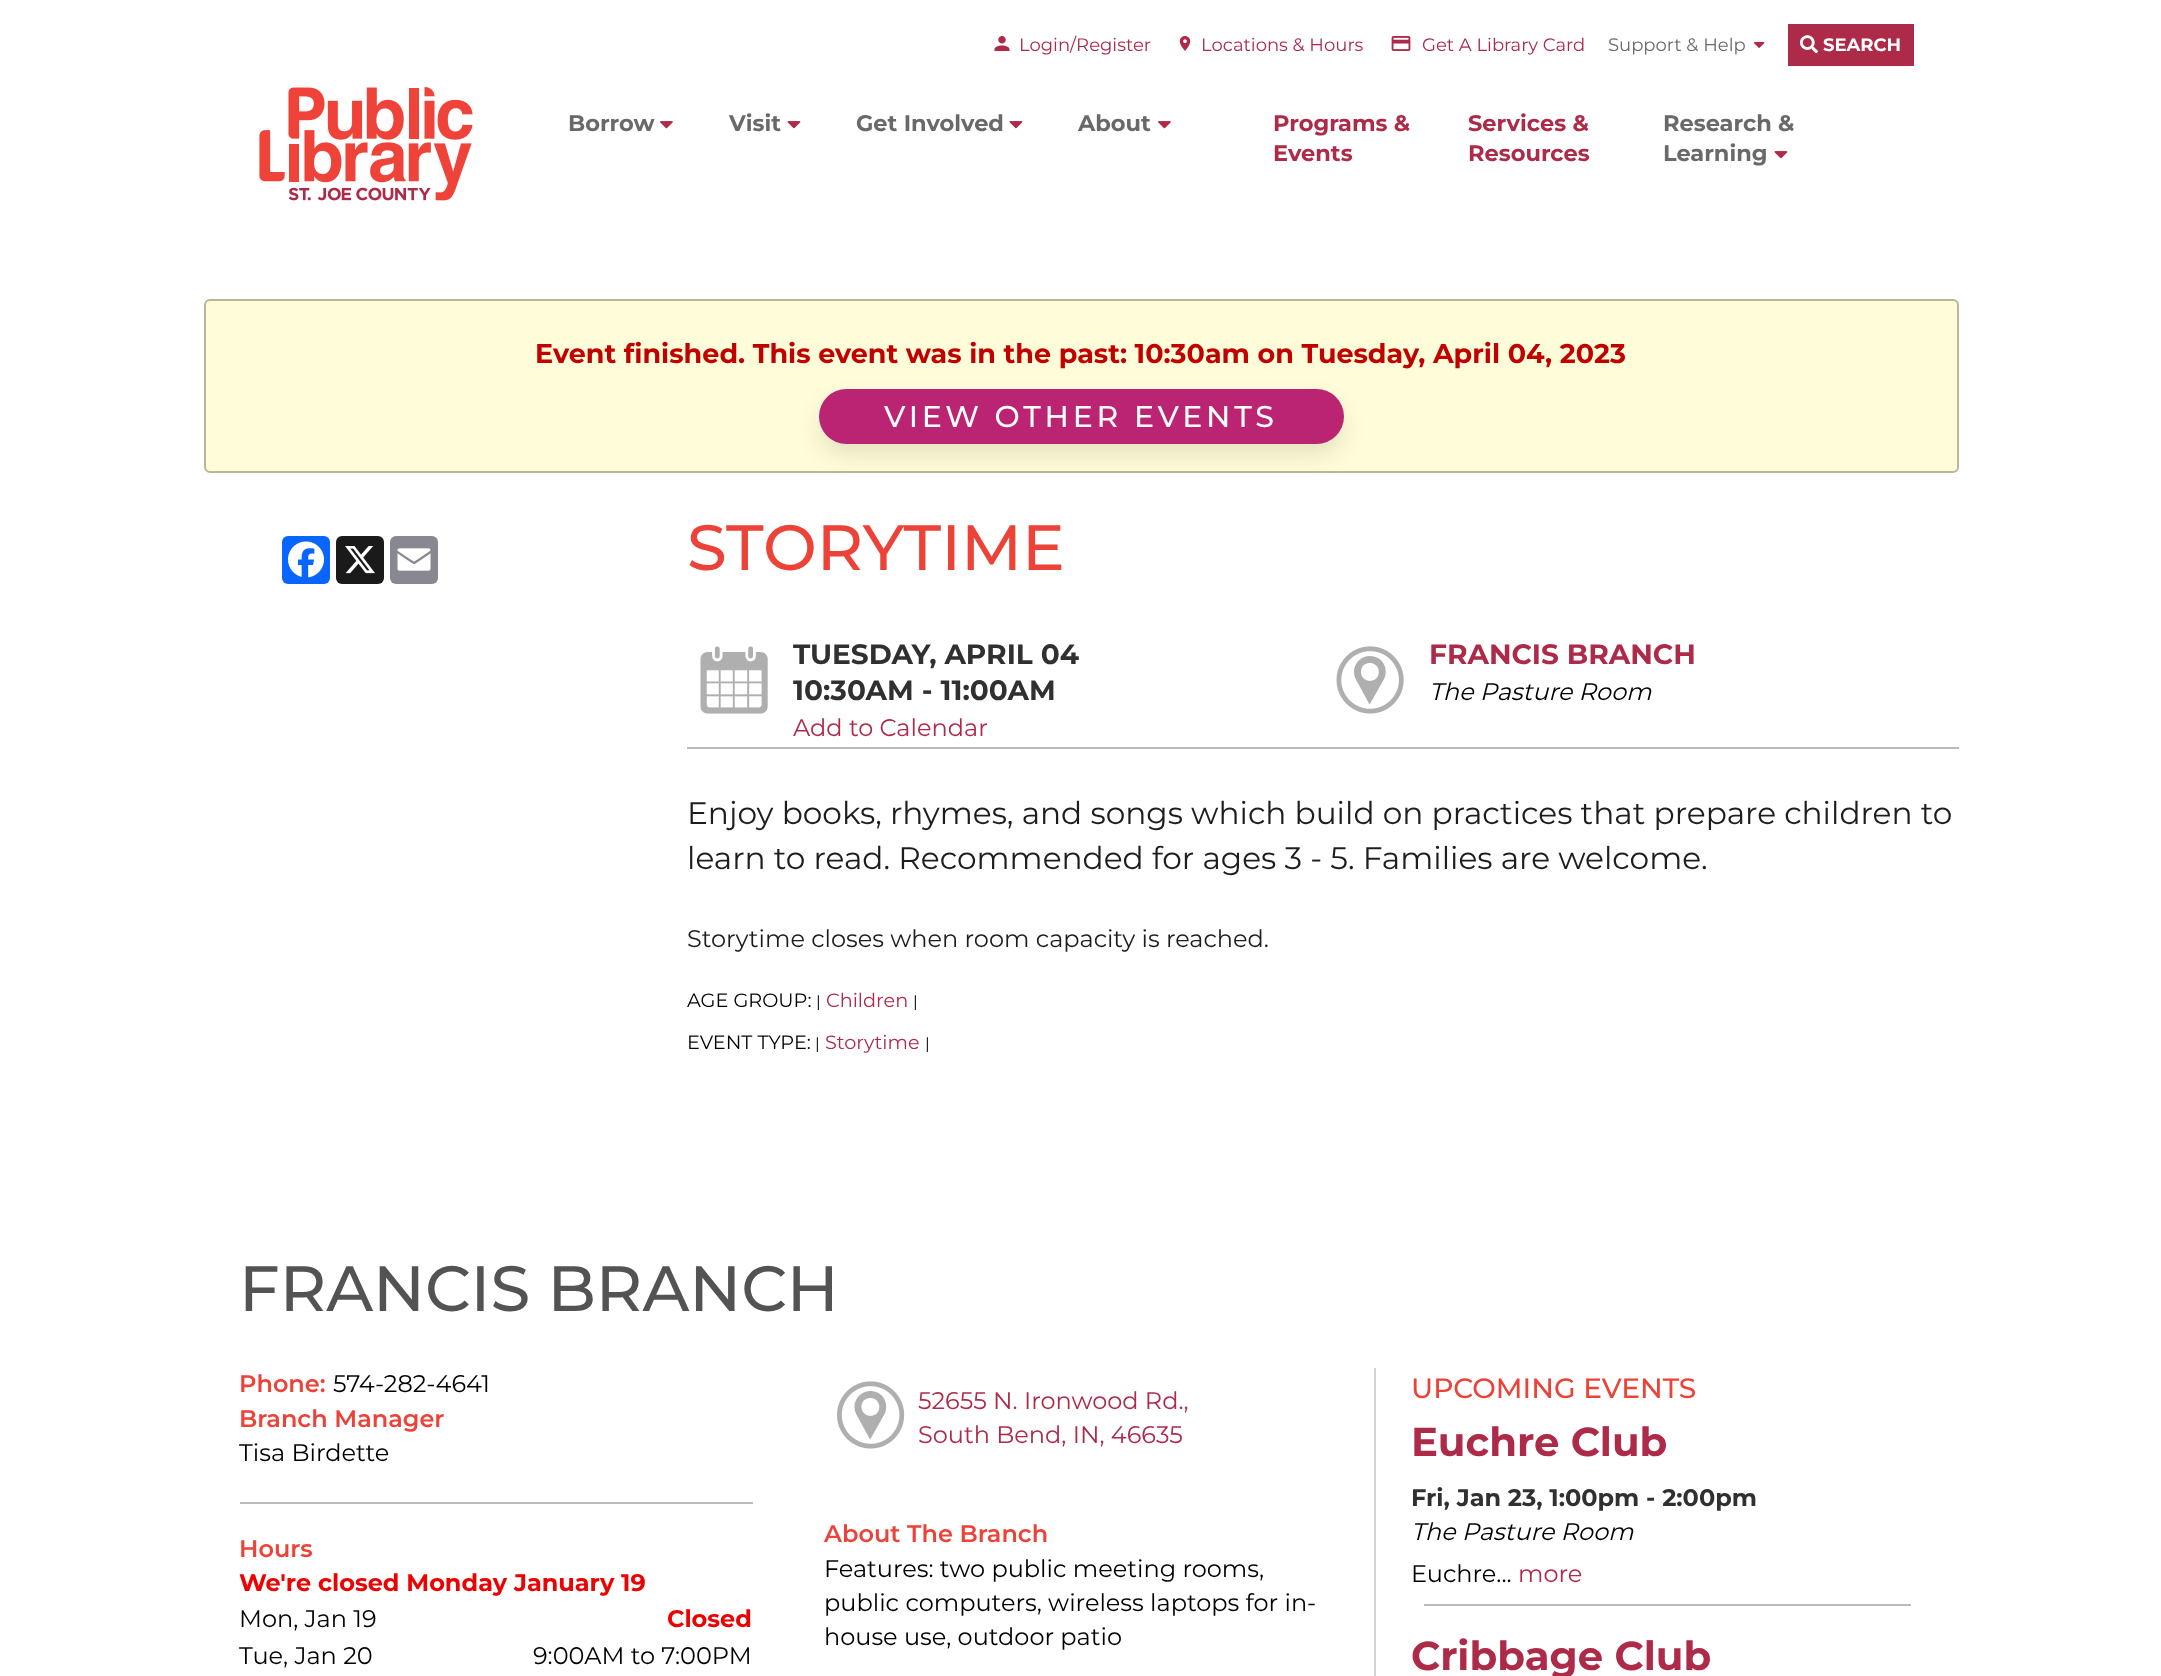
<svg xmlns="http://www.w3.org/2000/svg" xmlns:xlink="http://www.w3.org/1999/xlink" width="2161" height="1676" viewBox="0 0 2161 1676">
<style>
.cls-1{font:18px Montserrat;fill:#ad2a49}
.cls-2{font:18px Montserrat;fill:#696969}
.cls-3{font:bold 18px Montserrat;fill:#ffffff}
.cls-4{font:bold 22.5px Montserrat;fill:#696969}
.cls-5{font:bold 22.5px Montserrat;fill:#ad2a49}
.cls-6{font:bold 27px Montserrat;fill:#c10000}
.cls-7{font:500 30px Montserrat;letter-spacing:3.75px;fill:#ffffff}
.cls-8{font:500 64px Montserrat;fill:#ed4238}
.cls-9{font:bold 28px Montserrat;fill:#303030}
.cls-10{font:24px Montserrat;fill:#ad2a49}
.cls-11{font:bold 28px Montserrat;fill:#ad2a49}
.cls-12{font:italic 24px Montserrat;fill:#000000}
.cls-13{font:31.2px Montserrat;fill:#1d1d1d}
.cls-14{font:24px Montserrat;fill:#1d1d1d}
.cls-15{font:19.25px Montserrat;fill:#000000}
.cls-16{font:16px Montserrat;fill:#000000}
.cls-17{font:19.25px Montserrat;fill:#ad2a49}
.cls-18{font:500 64px Montserrat;fill:#535353}
.cls-19{font:600 24px Montserrat;fill:#ed4238}
.cls-20{font:24px Montserrat;fill:#000000}
.cls-21{font:bold 24px Montserrat;fill:#ed0202}
.cls-22{font:500 28px Montserrat;fill:#ed4238}
.cls-23{font:bold 40.25px Montserrat;fill:#ad2a49}
.cls-24{font:bold 24px Montserrat;fill:#303030}
</style>
<rect width="100%" height="100%" fill="#ffffff"/>
<image xlink:href="image0.png" x="994" y="36" width="16" height="15"/>
<image xlink:href="image1.png" x="1179" y="36" width="12" height="15"/>
<image xlink:href="image2.png" x="1391" y="36" width="20" height="15"/>
<image xlink:href="image3.png" x="1753" y="42" width="12" height="6"/>
<rect fill="#ad2a49" x="1788" y="24" width="126" height="42"/>
<image xlink:href="image4.png" x="1800" y="35" width="18" height="19"/>
<image xlink:href="image5.png" x="259" y="87" width="214" height="114"/>
<image xlink:href="image6.png" x="660" y="121" width="13" height="8"/>
<image xlink:href="image7.png" x="787" y="121" width="14" height="8"/>
<image xlink:href="image7.png" x="1009" y="121" width="14" height="8"/>
<image xlink:href="image6.png" x="1158" y="121" width="13" height="8"/>
<image xlink:href="image7.png" x="1774" y="151" width="14" height="8"/>
<rect fill="#fffdd9" stroke="#b8b79a" stroke-width="2" x="205" y="300" width="1753" height="172" rx="5"/>
<rect fill="#000000" fill-opacity="0.1" filter="blur(11px)" x="819" y="401" width="525" height="55" rx="27.5"/>
<rect fill="#bb2472" x="819" y="389" width="525" height="55" rx="27.5"/>
<rect fill="#0866ff" x="282" y="536" width="48" height="48" rx="6"/>
<image xlink:href="image8.png" x="288" y="541" width="36" height="37"/>
<rect fill="#1a1a1a" x="336" y="536" width="48" height="48" rx="6"/>
<image xlink:href="image9.png" x="345" y="546" width="30" height="28"/>
<rect fill="#888990" x="390" y="536" width="48" height="48" rx="6"/>
<image xlink:href="image10.png" x="397" y="548" width="34" height="23"/>
<image xlink:href="image11.png" x="700" y="646" width="68" height="68"/>
<image xlink:href="image12.png" x="1336" y="646" width="68" height="68"/>
<rect fill="#bbbbbb" x="687" y="747" width="1272" height="2"/>
<rect fill="#bbbbbb" x="240" y="1502" width="513" height="2"/>
<image xlink:href="image13.png" x="837" y="1381" width="68" height="68"/>
<rect fill="#d3d3d3" x="1374" y="1368" width="2" height="308"/>
<rect fill="#bbbbbb" x="1424" y="1604" width="487" height="2"/>
<text class="cls-1" x="1019" y="51">Login/Register</text>
<text class="cls-1" x="1201" y="51">Locations &amp; Hours</text>
<text class="cls-1" x="1422" y="51">Get A Library Card</text>
<text class="cls-2" x="1608" y="51">Support &amp; Help</text>
<text class="cls-3" x="1823" y="51">SEARCH</text>
<text class="cls-4" x="568" y="131">Borrow</text>
<text class="cls-4" x="729" y="131">Visit</text>
<text class="cls-4" x="856" y="131">Get Involved</text>
<text class="cls-4" x="1078" y="131">About</text>
<text class="cls-5"><tspan x="1273" y="131">Programs &amp;</tspan><tspan x="1273" y="161">Events</tspan></text>
<text class="cls-5"><tspan x="1468" y="131">Services &amp;</tspan><tspan x="1468" y="161">Resources</tspan></text>
<text class="cls-4"><tspan x="1663" y="131">Research &amp;</tspan><tspan x="1663" y="161">Learning</tspan></text>
<text class="cls-6" x="535" y="363">Event finished. This event was in the past: 10:30am on Tuesday, April 04, 2023</text>
<text class="cls-7" x="884" y="427">VIEW OTHER EVENTS</text>
<text class="cls-8" x="687" y="570">STORYTIME</text>
<text class="cls-9"><tspan x="793" y="664">TUESDAY, APRIL 04</tspan><tspan x="793" y="700">10:30AM - 11:00AM</tspan></text>
<text class="cls-10" x="793" y="736">Add to Calendar</text>
<text class="cls-11" x="1429" y="664">FRANCIS BRANCH</text>
<text class="cls-12" x="1429" y="700">The Pasture Room</text>
<text class="cls-13"><tspan x="687" y="824">Enjoy books, rhymes, and songs which build on practices that prepare children to</tspan><tspan x="687" y="869">learn to read. Recommended for ages 3 - 5. Families are welcome.</tspan></text>
<text class="cls-14" x="687" y="947">Storytime closes when room capacity is reached.</text>
<text class="cls-15" x="687" y="1007">AGE GROUP:</text>
<text class="cls-16" x="816" y="1007">|</text>
<text class="cls-17" x="826" y="1007">Children</text>
<text class="cls-16" x="913" y="1007">|</text>
<text class="cls-15" x="687" y="1049">EVENT TYPE:</text>
<text class="cls-16" x="815" y="1049">|</text>
<text class="cls-17" x="825" y="1049">Storytime</text>
<text class="cls-16" x="925" y="1049">|</text>
<text class="cls-18" x="239" y="1311">FRANCIS BRANCH</text>
<text class="cls-19" x="239" y="1392">Phone:</text>
<text class="cls-20" x="333" y="1392">574-282-4641</text>
<text class="cls-19" x="239" y="1427">Branch Manager</text>
<text class="cls-20" x="239" y="1461">Tisa Birdette</text>
<text class="cls-19" x="239" y="1557">Hours</text>
<text class="cls-21" x="239" y="1591">We're closed Monday January 19</text>
<text class="cls-20" x="239" y="1627">Mon, Jan 19</text>
<text class="cls-21" x="667" y="1627">Closed</text>
<text class="cls-20" x="239" y="1664">Tue, Jan 20</text>
<text class="cls-20" x="533" y="1664">9:00AM to 7:00PM</text>
<text class="cls-10"><tspan x="918" y="1409">52655 N. Ironwood Rd.,</tspan><tspan x="918" y="1443">South Bend, IN, 46635</tspan></text>
<text class="cls-19" x="824" y="1542">About The Branch</text>
<text class="cls-20"><tspan x="824" y="1577">Features: two public meeting rooms,</tspan><tspan x="824" y="1611">public computers, wireless laptops for in-</tspan><tspan x="824" y="1645">house use, outdoor patio</tspan></text>
<text class="cls-22" x="1411" y="1398">UPCOMING EVENTS</text>
<text class="cls-23" x="1411" y="1456">Euchre Club</text>
<text class="cls-24" x="1411" y="1506">Fri, Jan 23, 1:00pm - 2:00pm</text>
<text class="cls-12" x="1411" y="1540">The Pasture Room</text>
<text class="cls-20" x="1411" y="1582">Euchre...</text>
<text class="cls-10" x="1518" y="1582">more</text>
<text class="cls-23" x="1411" y="1670">Cribbage Club</text>
</svg>
